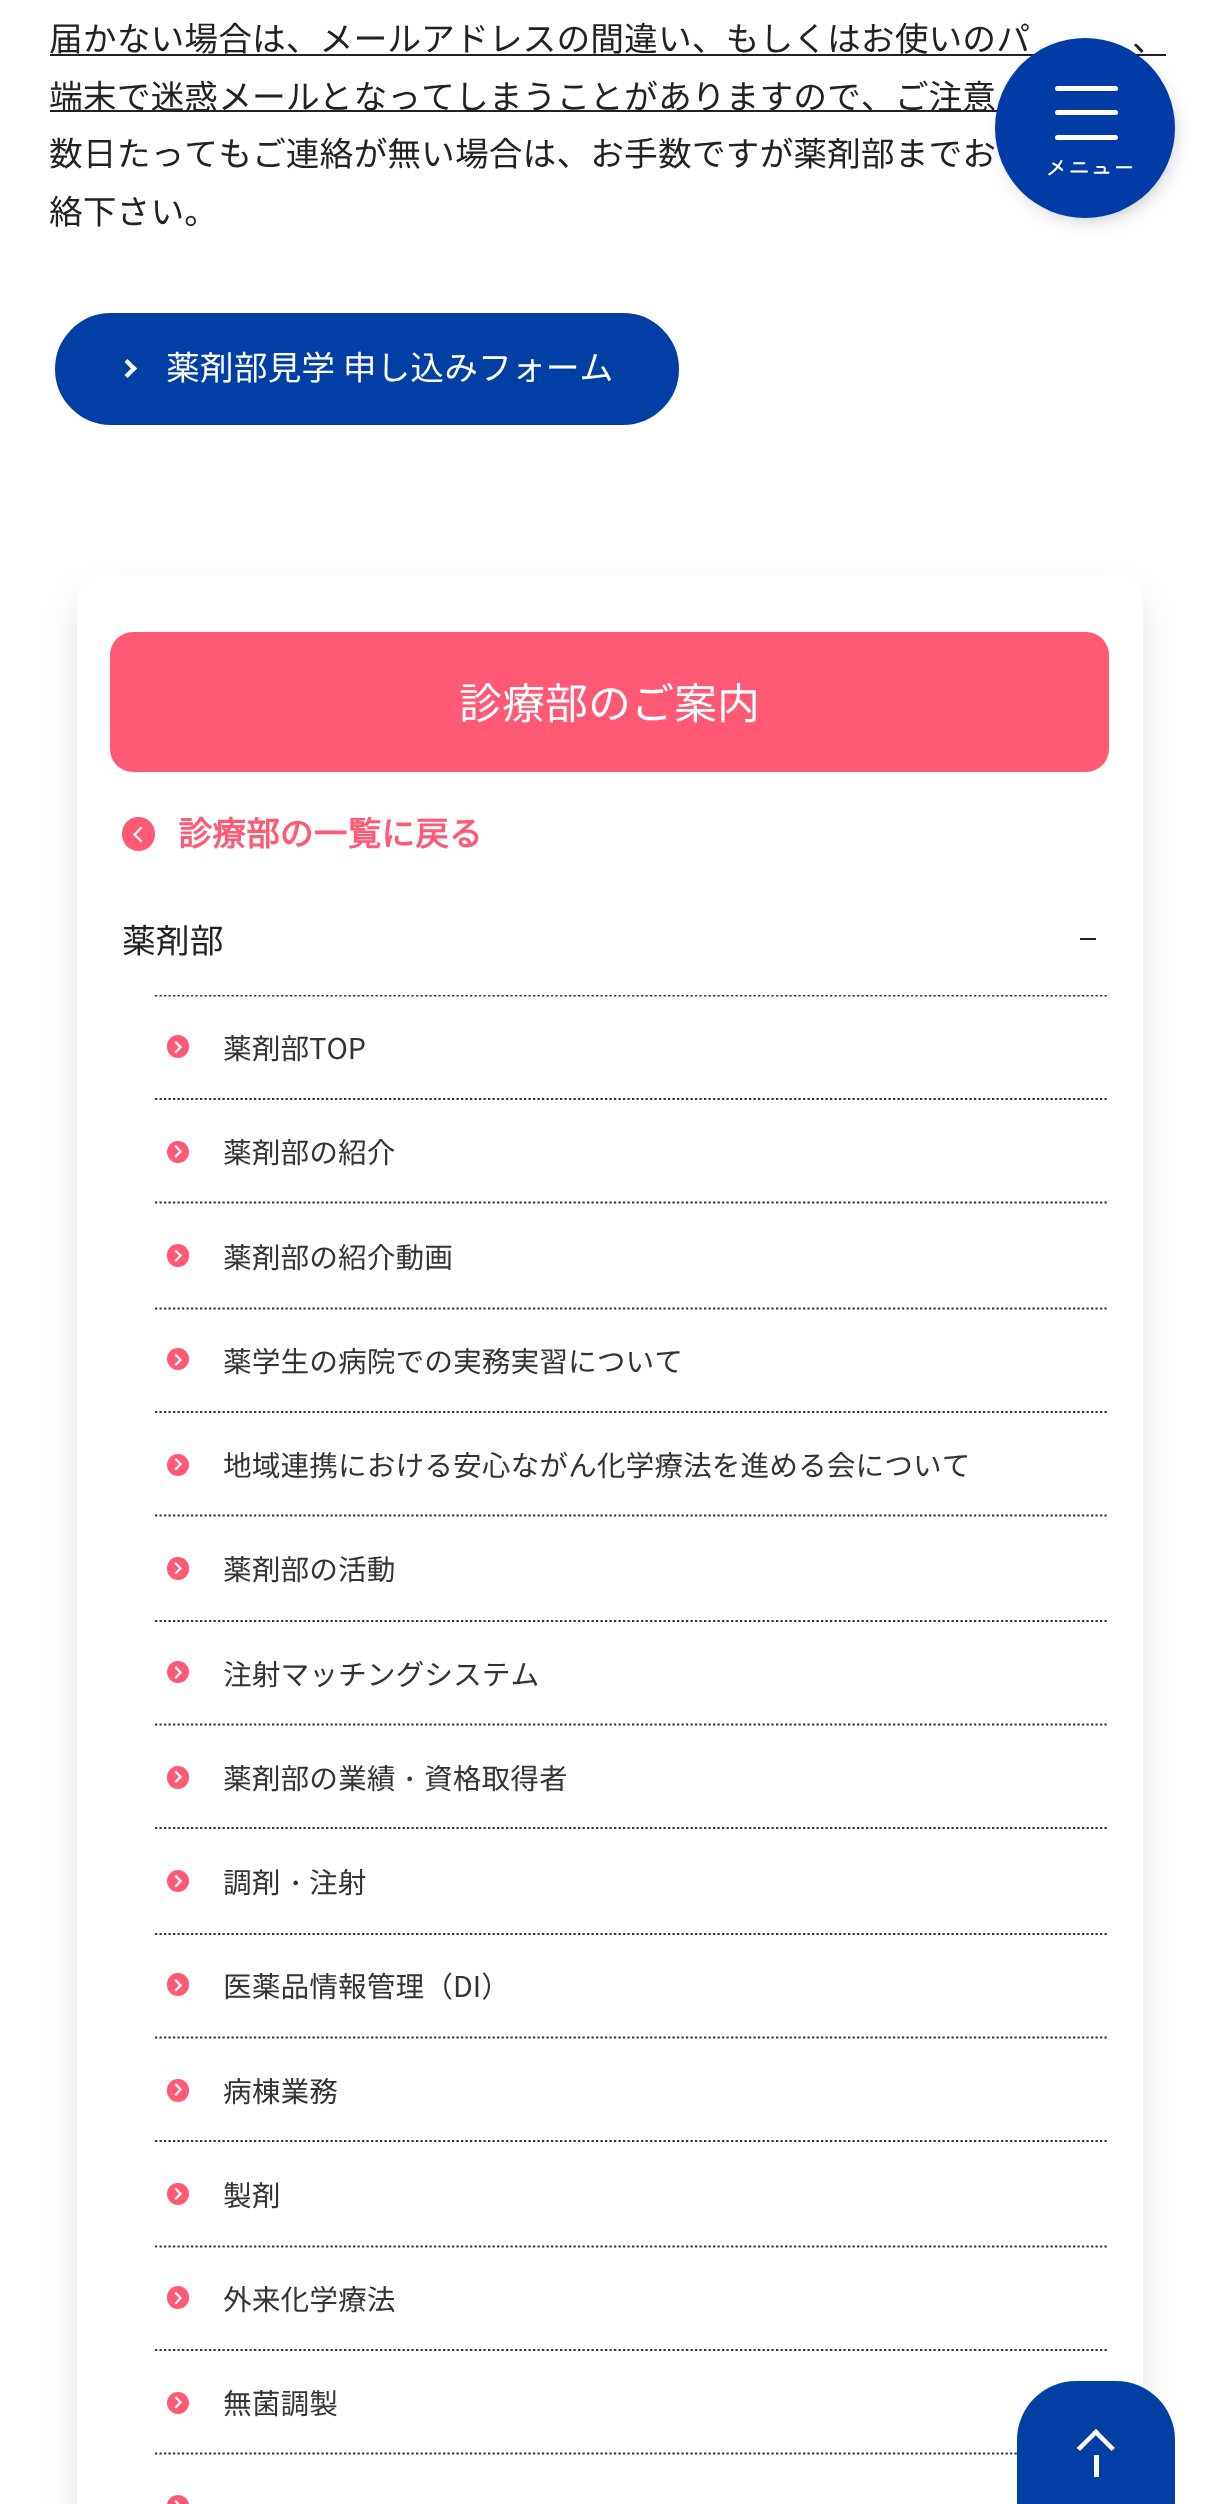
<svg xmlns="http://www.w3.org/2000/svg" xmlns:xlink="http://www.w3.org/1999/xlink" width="1219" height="2504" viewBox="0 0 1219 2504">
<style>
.cls-1{font:33.85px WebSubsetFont;fill:#222222}
.cls-2{font:33.85px WebSubsetFont;fill:#ffffff}
.cls-3{font:43px WebSubsetFont;fill:#ffffff}
.cls-4{font:bold 33.85px WebSubsetFont;fill:#ff5973}
.cls-5{font:28.75px WebSubsetFont;fill:#333333}
.cls-6{font:500 28.75px WenQuanYi Zen Hei;fill:#333333}
.cls-7{font:bold 22.5px Zen Maru Gothic;fill:#ffffff}
</style>
<defs>
<clipPath id="clip1"><path d="M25 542H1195V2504H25ZM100 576H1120C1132.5 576 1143 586.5 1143 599V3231C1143 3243.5 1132.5 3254 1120 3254H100C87.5 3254 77 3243.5 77 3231V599C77 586.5 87.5 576 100 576Z" clip-rule="evenodd"/></clipPath>
<clipPath id="clip2"><rect x="122" y="995" width="987" height="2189"/></clipPath>
</defs>
<rect width="100%" height="100%" fill="#ffffff"/>
<rect fill="#222222" x="50" y="54" width="1116" height="2"/>
<rect fill="#222222" x="50" y="110" width="947" height="2"/>
<rect fill="#013fa4" stroke="#ffffff" stroke-width="5" x="52.5" y="310.5" width="629" height="117" rx="58.5"/>
<path fill="#ffffff" d="M127.5 359L137 368.5L134 371.5L124.5 362Z"/>
<path fill="#ffffff" d="M134 365.5L137 368.5L127.5 378L124.5 375Z"/>
<g clip-path="url(#clip1)">
<rect fill="#000000" fill-opacity="0.1" filter="blur(17px)" x="77" y="594" width="1066" height="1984" rx="23"/>
</g>
<rect fill="#ff5973" x="110" y="632" width="999" height="140" rx="23"/>
<rect fill="#ff5973" x="122" y="817" width="33" height="34" rx="16.5"/>
<path fill="#ffffff" d="M141 842.5L133 834.5L134.5 833L142.5 841Z"/>
<path fill="#ffffff" d="M134.5 836L133 834.5L141 826.5L142.5 828Z"/>
<rect fill="#222222" x="1080" y="938" width="16" height="2"/>
<g clip-path="url(#clip2)">
<path fill="none" stroke="#333333" stroke-width="2.2" stroke-dasharray="2.25 2.25" d="M155 995.5H1109"/>
</g>
<rect fill="#ff5973" x="167" y="1035" width="22" height="23" rx="11"/>
<path fill="#ffffff" d="M176 1041L182 1047L180.5 1049L174.5 1042.5Z"/>
<path fill="#ffffff" d="M180.5 1045.5L182 1047L176 1053.5L174.5 1052Z"/>
<path fill="none" stroke="#333333" stroke-width="2.2" stroke-dasharray="2.25 2.25" d="M155 1099H1109"/>
<circle fill="#ff5973" cx="178" cy="1152" r="11"/>
<path fill="#ffffff" d="M176 1145L182 1151.5L180.5 1153L174.5 1146.5Z"/>
<path fill="#ffffff" d="M180.5 1150L182 1151.5L176 1158L174.5 1156Z"/>
<path fill="none" stroke="#333333" stroke-width="2.2" stroke-dasharray="2.25 2.25" d="M155 1202.5H1109"/>
<rect fill="#ff5973" x="167" y="1244" width="22" height="23" rx="11"/>
<path fill="#ffffff" d="M176 1249.5L182 1255.5L180.5 1257L174.5 1251Z"/>
<path fill="#ffffff" d="M180.5 1254L182 1255.5L176 1262L174.5 1260.5Z"/>
<path fill="none" stroke="#333333" stroke-width="2.2" stroke-dasharray="2.25 2.25" d="M155 1308.5H1109"/>
<circle fill="#ff5973" cx="178" cy="1359" r="11"/>
<path fill="#ffffff" d="M176 1353.5L182 1360L180.5 1361.5L174.5 1355Z"/>
<path fill="#ffffff" d="M180.5 1358.5L182 1360L176 1366L174.5 1364.5Z"/>
<path fill="none" stroke="#333333" stroke-width="2.2" stroke-dasharray="2.25 2.25" d="M155 1412H1109"/>
<circle fill="#ff5973" cx="178" cy="1465" r="11"/>
<path fill="#ffffff" d="M176 1458L182 1464L180.5 1465.5L174.5 1459.5Z"/>
<path fill="#ffffff" d="M180.5 1462.5L182 1464L176 1470.5L174.5 1469Z"/>
<path fill="none" stroke="#333333" stroke-width="2.2" stroke-dasharray="2.25 2.25" d="M155 1515.5H1109"/>
<rect fill="#ff5973" x="167" y="1557" width="22" height="23" rx="11"/>
<path fill="#ffffff" d="M176 1562L182 1568.5L180.5 1570L174.5 1563.5Z"/>
<path fill="#ffffff" d="M180.5 1567L182 1568.5L176 1574.5L174.5 1573Z"/>
<path fill="none" stroke="#333333" stroke-width="2.2" stroke-dasharray="2.25 2.25" d="M155 1621H1109"/>
<circle fill="#ff5973" cx="178" cy="1672" r="11"/>
<path fill="#ffffff" d="M176 1666L182 1672.5L180.5 1674L174.5 1668Z"/>
<path fill="#ffffff" d="M180.5 1671L182 1672.5L176 1679L174.5 1677.5Z"/>
<path fill="none" stroke="#333333" stroke-width="2.2" stroke-dasharray="2.25 2.25" d="M155 1724.5H1109"/>
<rect fill="#ff5973" x="167" y="1766" width="22" height="23" rx="11"/>
<path fill="#ffffff" d="M176 1770.5L182 1777L180.5 1778.5L174.5 1772Z"/>
<path fill="#ffffff" d="M180.5 1775L182 1777L176 1783L174.5 1781.5Z"/>
<path fill="none" stroke="#333333" stroke-width="2.2" stroke-dasharray="2.25 2.25" d="M155 1828H1109"/>
<circle fill="#ff5973" cx="178" cy="1881" r="11"/>
<path fill="#ffffff" d="M176 1874.5L182 1881L180.5 1882.5L174.5 1876.5Z"/>
<path fill="#ffffff" d="M180.5 1879.5L182 1881L176 1887.5L174.5 1886Z"/>
<path fill="none" stroke="#333333" stroke-width="2.2" stroke-dasharray="2.25 2.25" d="M155 1934H1109"/>
<rect fill="#ff5973" x="167" y="1973" width="22" height="23" rx="11"/>
<path fill="#ffffff" d="M176 1979L182 1985.5L180.5 1987L174.5 1980.5Z"/>
<path fill="#ffffff" d="M180.5 1983.5L182 1985.5L176 1991.5L174.5 1990Z"/>
<path fill="none" stroke="#333333" stroke-width="2.2" stroke-dasharray="2.25 2.25" d="M155 2037.5H1109"/>
<rect fill="#ff5973" x="167" y="2079" width="22" height="23" rx="11"/>
<path fill="#ffffff" d="M176 2083L182 2089.5L180.5 2091L174.5 2085Z"/>
<path fill="#ffffff" d="M180.5 2088L182 2089.5L176 2096L174.5 2094.5Z"/>
<path fill="none" stroke="#333333" stroke-width="2.2" stroke-dasharray="2.25 2.25" d="M155 2141H1109"/>
<circle fill="#ff5973" cx="178" cy="2194" r="11"/>
<path fill="#ffffff" d="M176 2187.5L182 2194L180.5 2195.5L174.5 2189Z"/>
<path fill="#ffffff" d="M180.5 2192L182 2194L176 2200L174.5 2198.5Z"/>
<path fill="none" stroke="#333333" stroke-width="2.2" stroke-dasharray="2.25 2.25" d="M155 2246.5H1109"/>
<rect fill="#ff5973" x="167" y="2286" width="22" height="23" rx="11"/>
<path fill="#ffffff" d="M176 2291.5L182 2298L180.5 2299.5L174.5 2293.5Z"/>
<path fill="#ffffff" d="M180.5 2296.5L182 2298L176 2304.5L174.5 2303Z"/>
<path fill="none" stroke="#333333" stroke-width="2.2" stroke-dasharray="2.25 2.25" d="M155 2350H1109"/>
<circle fill="#ff5973" cx="178" cy="2403" r="11"/>
<path fill="#ffffff" d="M176 2396L182 2402.5L180.5 2404L174.5 2397.5Z"/>
<path fill="#ffffff" d="M180.5 2400.5L182 2402.5L176 2408.5L174.5 2407Z"/>
<path fill="none" stroke="#333333" stroke-width="2.2" stroke-dasharray="2.25 2.25" d="M155 2453.5H1109"/>
<rect fill="#ff5973" x="167" y="2495" width="22" height="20" rx="11"/>
<path fill="#ffffff" d="M176 2500L182 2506.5L180.5 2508L174.5 2501.5Z"/>
<rect fill="#000000" fill-opacity="0.6" filter="blur(13.5px)" x="1015" y="61" width="148" height="148" rx="74"/>
<rect fill="#013fa4" x="1017" y="2381" width="158" height="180" rx="59"/>
<path fill="#ffffff" d="M1076.5 2448L1096 2429L1099 2432L1080 2451Z"/>
<path fill="#ffffff" d="M1092.5 2432L1096 2429L1115 2448L1111.5 2451Z"/>
<rect fill="#ffffff" x="1094" y="2455" width="5" height="22"/>
<text class="cls-1" x="49" y="51">届かない場合は、メールアドレスの間違い、もしくはお使いのパ</text>
<text class="cls-1" x="1132" y="51">、</text>
<text class="cls-1"><tspan x="49" y="109">端末で迷惑メールとなってしまうことがありますので、ご注意</tspan><tspan x="49" y="166">数日たってもご連絡が無い場合は、お手数ですが薬剤部までお</tspan><tspan x="49" y="224">絡下さい。</tspan></text>
<text class="cls-2" x="166" y="380">薬剤部見学 申し込みフォーム</text>
<text class="cls-3" x="459" y="719">診療部のご案内</text>
<text class="cls-4" x="178" y="846">診療部の一覧に戻る</text>
<text class="cls-1" x="122" y="953">薬剤部</text>
<text class="cls-5" x="223" y="1059">薬剤部TOP</text>
<text class="cls-5" x="223" y="1163">薬剤部の紹介</text>
<text class="cls-5" x="223" y="1268">薬剤部の紹介動画</text>
<text class="cls-5" x="223" y="1372">薬学生の病院での実務実習について</text>
<text class="cls-5" x="223" y="1476">地域連携における安心ながん化学療法を進める会について</text>
<text class="cls-5" x="223" y="1580">薬剤部の活動</text>
<text class="cls-5" x="223" y="1685">注射マッチングシステム</text>
<text class="cls-5" x="223" y="1789">薬剤部の業績</text>
<text class="cls-5" x="424" y="1789">資格取得者</text>
<text class="cls-6" x="395" y="1789">・</text>
<text class="cls-5" x="223" y="1893">調剤</text>
<text class="cls-5" x="309" y="1893">注射</text>
<text class="cls-6" x="281" y="1893">・</text>
<text class="cls-5" x="223" y="1997">医薬品情報管理（DI）</text>
<text class="cls-5" x="223" y="2102">病棟業務</text>
<text class="cls-5" x="223" y="2206">製剤</text>
<text class="cls-5" x="223" y="2310">外来化学療法</text>
<text class="cls-5" x="223" y="2414">無菌調製</text>
<circle fill="#013ca6" cx="1085" cy="128" r="90"/>
<rect fill="#ffffff" x="1055" y="86" width="63" height="5" rx="2.5"/>
<rect fill="#ffffff" x="1055" y="110" width="63" height="5" rx="2.5"/>
<rect fill="#ffffff" x="1055" y="135" width="63" height="5" rx="2.5"/>
<text class="cls-7" x="1045" y="176">メニュー</text>
</svg>
